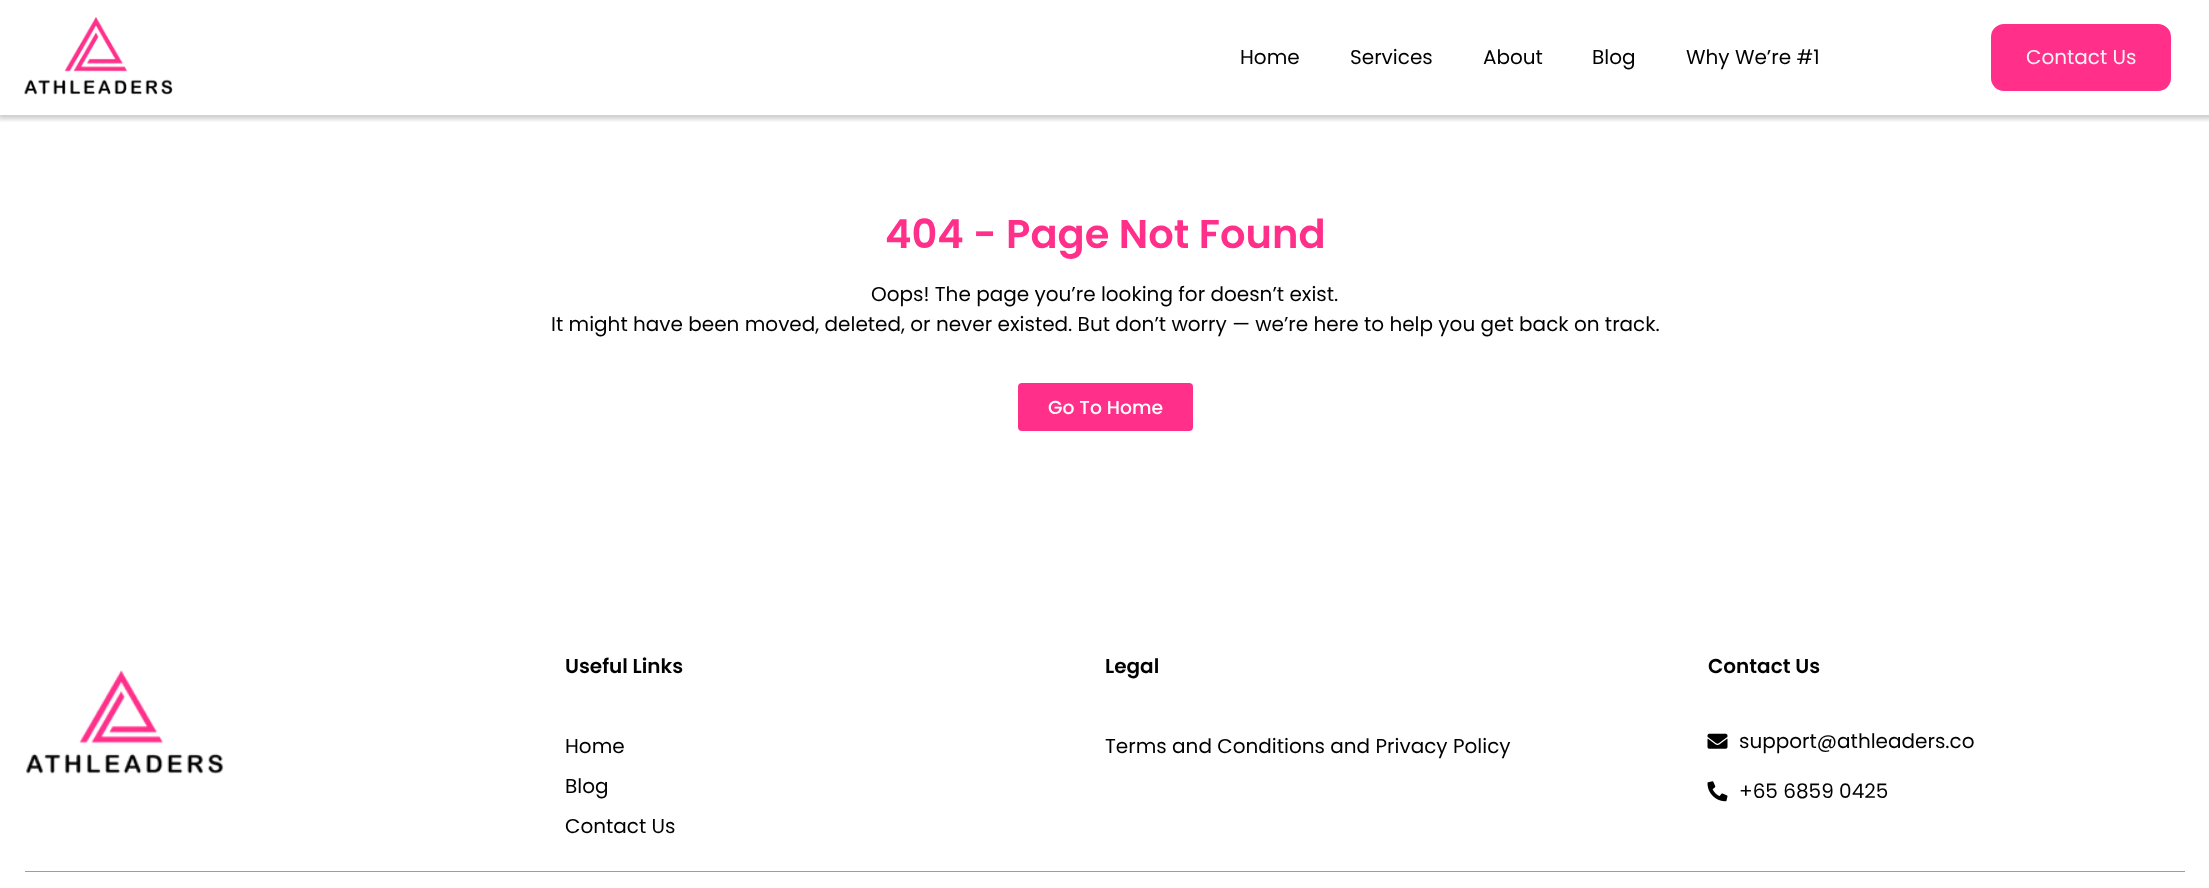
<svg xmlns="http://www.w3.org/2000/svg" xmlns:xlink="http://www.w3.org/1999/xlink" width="2209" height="888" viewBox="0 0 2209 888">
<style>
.cls-1{font:20px Poppins;fill:#000000}
.cls-2{font:20px Poppins;fill:#f4f4f4}
.cls-3{font:600 40px Poppins;fill:#ff2f8a}
.cls-4{font:500 18.75px Poppins;fill:#ffffff}
.cls-5{font:600 20px Poppins;fill:#000000}
</style>
<defs>
<clipPath id="clip1"><rect x="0" y="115" width="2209" height="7"/></clipPath>
</defs>
<rect width="100%" height="100%" fill="#ffffff"/>
<g clip-path="url(#clip1)">
<rect fill="#000000" fill-opacity="0.2" filter="blur(2.5px)" x="-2" y="-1" width="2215" height="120"/>
</g>
<image xlink:href="image0.png" x="24" y="16" width="149" height="79"/>
<rect fill="#ff2f8a" stroke="#ff2f8a" stroke-width="4" x="1993" y="26" width="176" height="63" rx="11"/>
<rect fill="#ff2f8a" x="1018" y="383" width="175" height="48" rx="4"/>
<image xlink:href="image1.png" x="26" y="670" width="198" height="104"/>
<image xlink:href="image2.png" x="1707" y="733" width="21" height="16"/>
<image xlink:href="image3.png" x="1707" y="781" width="21" height="21"/>
<rect fill="#9e9e9e" x="25" y="871" width="2160" height="1"/>
<text class="cls-1" x="1240" y="64">Home</text>
<text class="cls-1" x="1350" y="64">Services</text>
<text class="cls-1" x="1483" y="64">About</text>
<text class="cls-1" x="1592" y="64">Blog</text>
<text class="cls-1" x="1686" y="64">Why We’re #1</text>
<text class="cls-2" x="2026" y="64">Contact Us</text>
<text class="cls-3" x="885" y="248">404 - Page Not Found</text>
<text class="cls-1" x="871" y="301">Oops! The page you’re looking for doesn’t exist.</text>
<text class="cls-1" x="551" y="331">It might have been moved, deleted, or never existed. But don’t worry — we’re here to help you get back on track.</text>
<text class="cls-4" x="1048" y="414">Go To Home</text>
<text class="cls-5" x="565" y="673">Useful Links</text>
<text class="cls-1" x="565" y="753">Home</text>
<text class="cls-1" x="565" y="793">Blog</text>
<text class="cls-1" x="565" y="833">Contact Us</text>
<text class="cls-5" x="1105" y="673">Legal</text>
<text class="cls-1" x="1105" y="753">Terms and Conditions and Privacy Policy</text>
<text class="cls-5" x="1708" y="673">Contact Us</text>
<text class="cls-1" x="1739" y="748">support@athleaders.co</text>
<text class="cls-1" x="1739" y="798">+65 6859 0425</text>
</svg>
